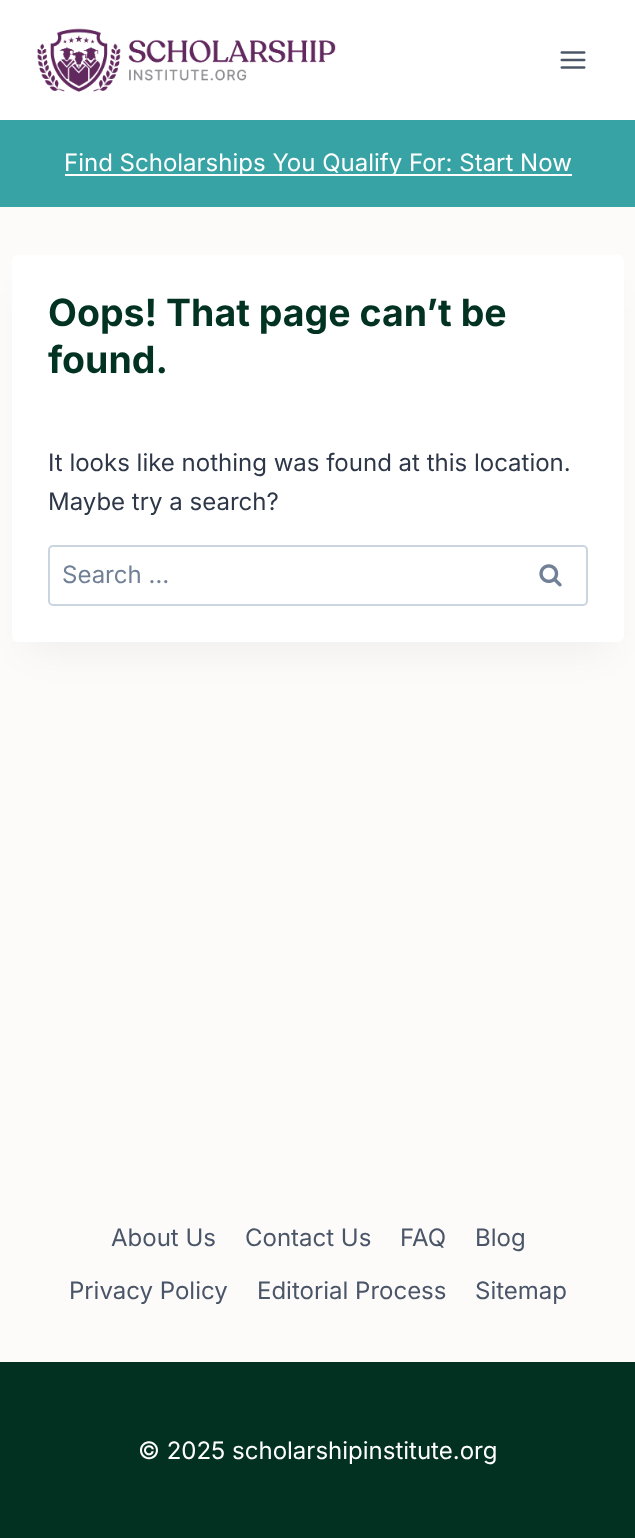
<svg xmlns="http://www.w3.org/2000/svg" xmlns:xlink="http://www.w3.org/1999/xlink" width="635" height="1538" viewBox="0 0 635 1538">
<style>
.cls-1{font:24px Inter;fill:#ffffff}
.cls-2{font:bold 37.5px Inter;fill:#013222}
.cls-3{font:24px Inter;fill:#2d3748}
.cls-4{font:24px Inter;fill:#718096}
.cls-5{font:24px Inter;fill:#4a5568}
</style>
<rect width="100%" height="100%" fill="#fcfbfa"/>
<rect fill="#ffffff" x="0" y="0" width="635" height="120"/>
<image xlink:href="image0.png" x="37" y="28" width="299" height="64"/>
<image xlink:href="image1.png" x="560" y="51" width="26" height="18"/>
<rect fill="#38a3a5" x="0" y="120" width="635" height="87"/>
<rect fill="#ffffff" x="65" y="174" width="507" height="2"/>
<rect fill="#000000" fill-opacity="0.05" filter="blur(19px)" x="27" y="293" width="582" height="357"/>
<rect fill="#ffffff" x="12" y="255" width="612" height="387" rx="6"/>
<rect fill="none" stroke="#cbd5e0" stroke-width="2" x="49" y="546" width="538" height="59" rx="4"/>
<image xlink:href="image2.png" x="539" y="564" width="23" height="23"/>
<rect fill="#023122" x="0" y="1362" width="635" height="176"/>
<text class="cls-1" x="64" y="171">Find Scholarships You Qualify For: Start Now</text>
<text class="cls-2"><tspan x="48" y="326">Oops! That page can’t be</tspan><tspan x="48" y="373">found.</tspan></text>
<text class="cls-3"><tspan x="48" y="471">It looks like nothing was found at this location.</tspan><tspan x="48" y="510">Maybe try a search?</tspan></text>
<text class="cls-4" x="62" y="583">Search …</text>
<text class="cls-5" x="111" y="1246">About Us</text>
<text class="cls-5" x="245" y="1246">Contact Us</text>
<text class="cls-5" x="400" y="1246">FAQ</text>
<text class="cls-5" x="475" y="1246">Blog</text>
<text class="cls-5" x="69" y="1299">Privacy Policy</text>
<text class="cls-5" x="257" y="1299">Editorial Process</text>
<text class="cls-5" x="475" y="1299">Sitemap</text>
<text class="cls-1" x="138" y="1459">© 2025 scholarshipinstitute.org</text>
</svg>
